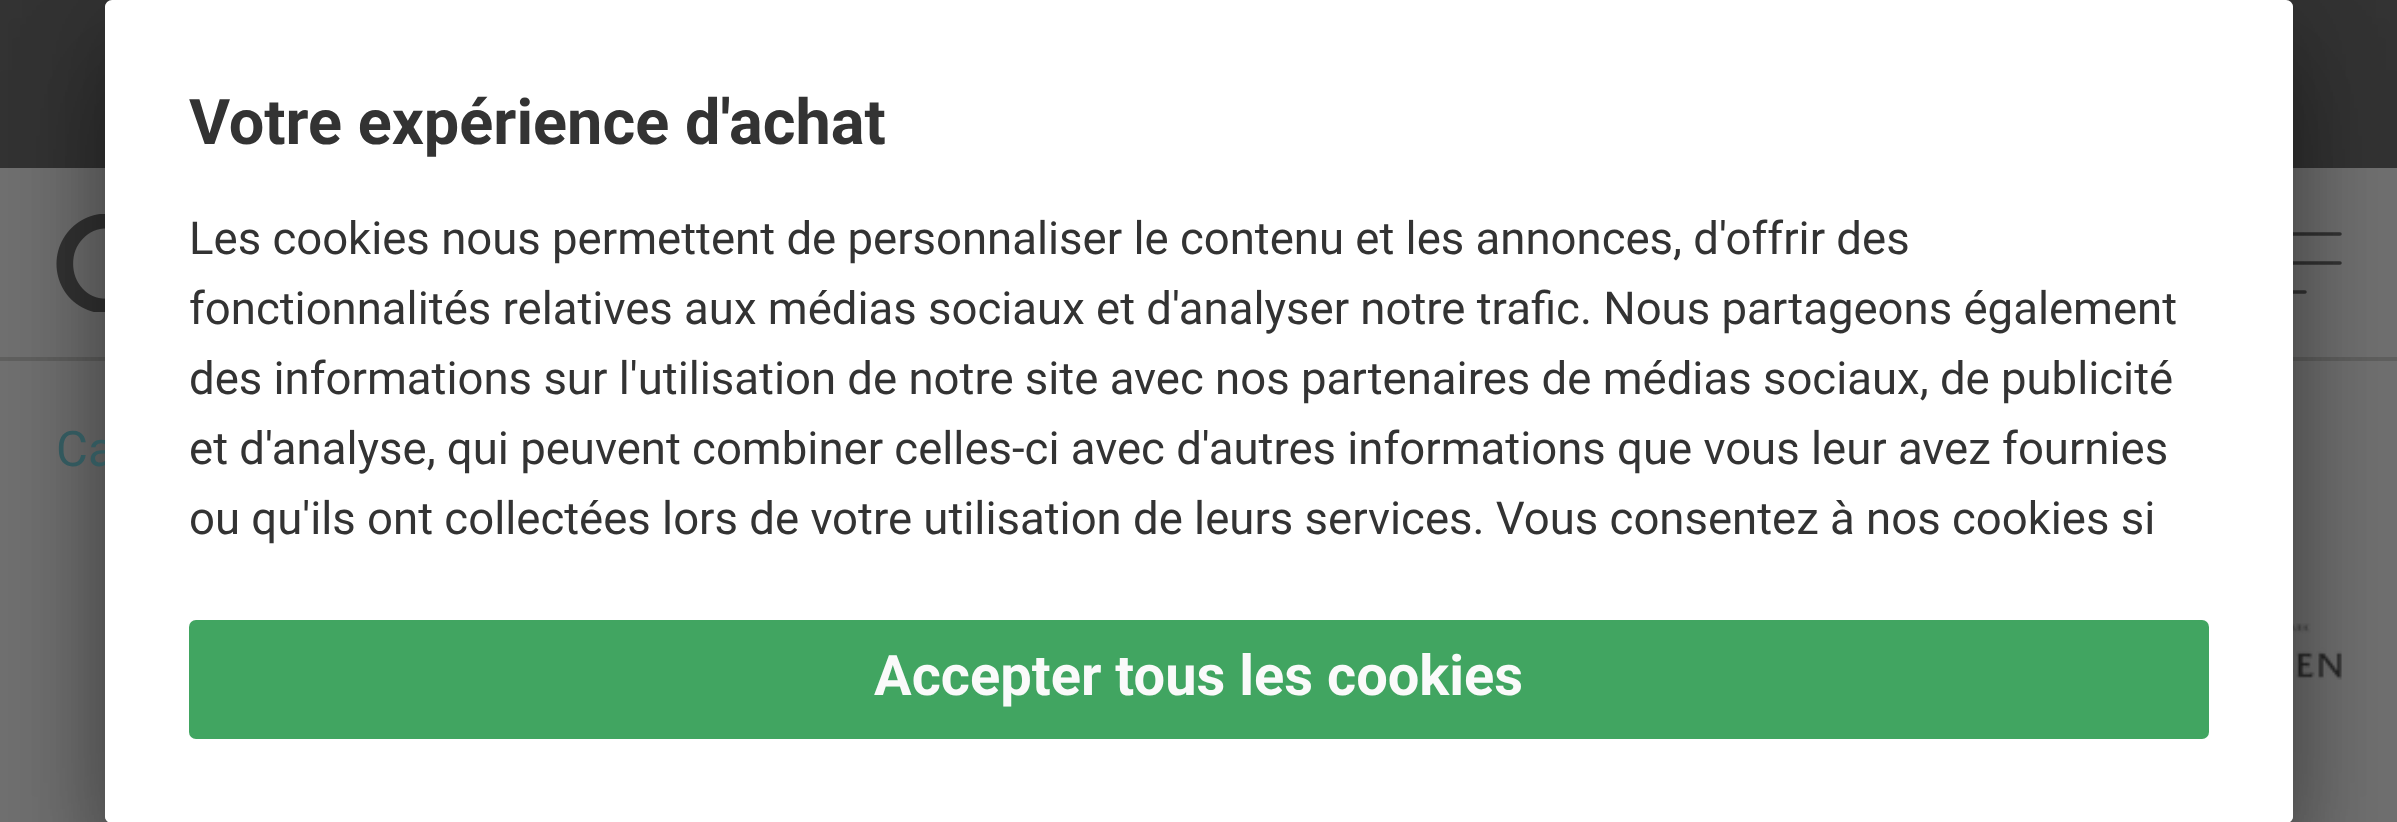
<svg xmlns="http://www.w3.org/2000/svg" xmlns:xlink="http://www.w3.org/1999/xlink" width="2397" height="822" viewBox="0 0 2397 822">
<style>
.cls-1{font:49px Roboto;fill:#32585d}
.cls-2{font:bold 63px Roboto;fill:#333333}
.cls-3{font:45.5px Roboto;fill:#333333}
.cls-4{font:bold 56px Roboto;fill:#fafafa}
</style>
<defs>
<clipPath id="clip1"><rect x="105" y="0" width="2188" height="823" rx="7"/></clipPath>
<clipPath id="clip2"><path d="M112 0H2286C2290 0 2293 3 2293 7V592H105V7C105 3 108 0 112 0Z"/></clipPath>
</defs>
<rect width="100%" height="100%" fill="#707070"/>
<rect fill="#333333" x="0" y="0" width="2397" height="168"/>
<rect fill="#60605f" x="0" y="357" width="2397" height="4"/>
<image xlink:href="image0.png" x="56" y="214" width="49" height="98"/>
<path fill="none" stroke="#333333" stroke-width="3.5" stroke-linecap="round" d="M2259 234H2340M2259 263H2340M2259 292H2305"/>
<image xlink:href="image1.png" x="2293" y="623" width="49" height="57"/>
<rect fill="#000000" fill-opacity="0.3" filter="blur(49px)" x="105" y="70" width="2188" height="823" rx="7"/>
<rect fill="#000000" fill-opacity="0.22" filter="blur(45.5px)" x="105" y="18" width="2188" height="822" rx="7"/>
<text class="cls-1" x="56" y="466">Ca</text>
<rect fill="#ffffff" x="105" y="0" width="2188" height="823" rx="7"/>
<g clip-path="url(#clip1)">
<g clip-path="url(#clip2)">
<rect fill="#ffffff" x="105" y="4" width="2188" height="588"/>
</g>
</g>
<text class="cls-2" x="189" y="144">Votre expérience d'achat</text>
<text class="cls-3"><tspan x="189" y="254">Les cookies nous permettent de personnaliser le contenu et les annonces, d'offrir des</tspan><tspan x="189" y="324">fonctionnalités relatives aux médias sociaux et d'analyser notre trafic. Nous partageons également</tspan><tspan x="189" y="394">des informations sur l'utilisation de notre site avec nos partenaires de médias sociaux, de publicité</tspan><tspan x="189" y="464">et d'analyse, qui peuvent combiner celles-ci avec d'autres informations que vous leur avez fournies</tspan><tspan x="189" y="534">ou qu'ils ont collectées lors de votre utilisation de leurs services. Vous consentez à nos cookies si</tspan></text>
<path fill="#ffffff" d="M105 592H2293V816C2293 820 2290 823 2286 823H112C108 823 105 820 105 816Z"/>
<rect fill="#41a561" x="189" y="620" width="2020" height="119" rx="7"/>
<text class="cls-4" x="874" y="695">Accepter tous les cookies</text>
</svg>
